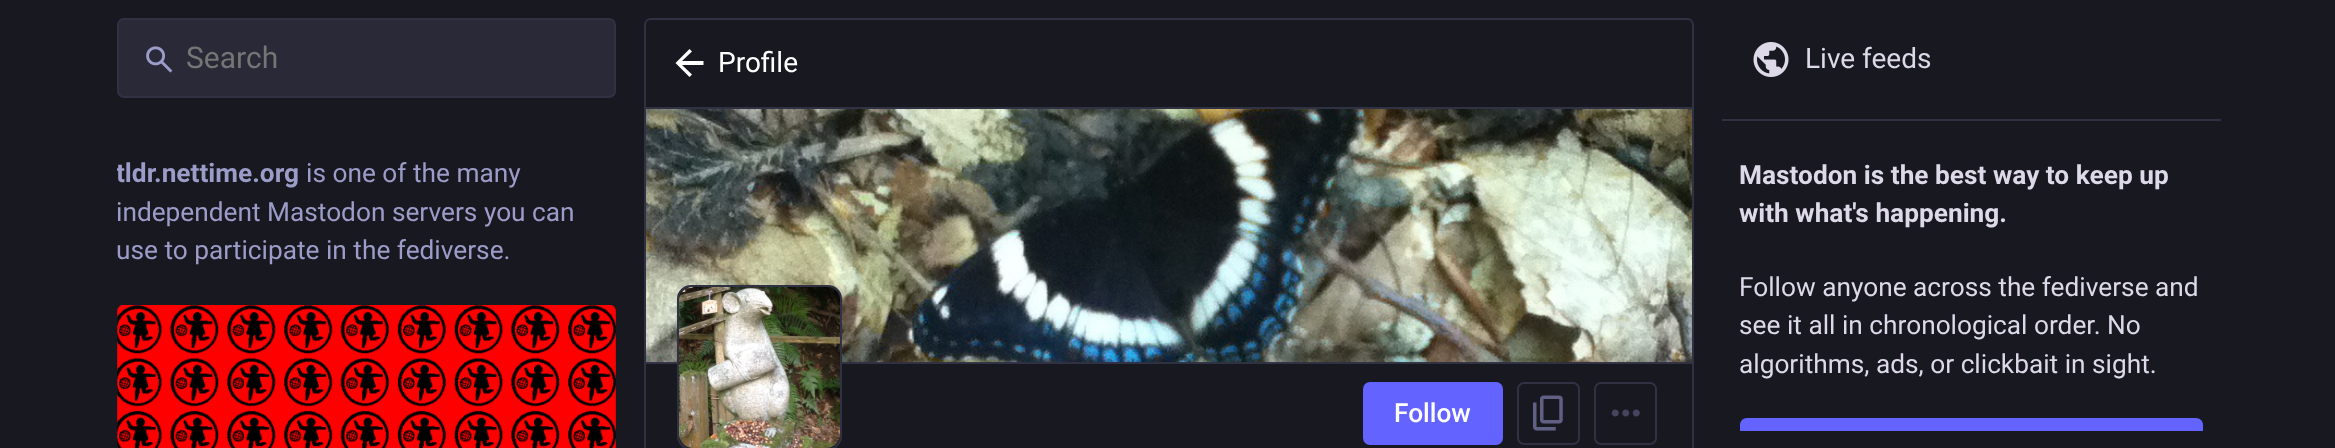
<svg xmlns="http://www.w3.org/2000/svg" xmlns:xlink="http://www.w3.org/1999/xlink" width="2335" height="448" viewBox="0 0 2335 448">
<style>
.cls-1{font:30px Roboto;fill:#757575}
.cls-2{font:bold 26.25px Roboto;fill:#9c9cc9}
.cls-3{font:26.25px Roboto;fill:#9c9cc9}
.cls-4{font:28px Roboto;fill:#ffffff}
.cls-5{font:500 26.25px Roboto;fill:#ffffff}
.cls-6{font:28px Roboto;fill:#ddd9e8}
.cls-7{font:bold 26.25px Roboto;fill:#ddd9e8}
.cls-8{font:26.25px Roboto;fill:#ddd9e8}
</style>
<defs>
<clipPath id="clip1"><rect x="117" y="18" width="499" height="430"/></clipPath>
</defs>
<rect width="100%" height="100%" fill="#181821"/>
<rect fill="#292938" stroke="#313144" stroke-width="2" x="118" y="19" width="497" height="78" rx="6"/>
<image xlink:href="image0.png" x="146" y="46" width="27" height="27"/>
<path fill="#292938" d="M124 305H609C613 305 616 308 616 312V448H117V312C117 308 120 305 124 305Z"/>
<image xlink:href="image1.png" x="117" y="305" width="499" height="143"/>
<path fill="#313144" fill-rule="evenodd" d="M644 108H1694V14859C1694 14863 1691 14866 1687 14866H651C647 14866 644 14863 644 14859ZM646 108H1692V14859C1692 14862 1690 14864 1687 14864H651C648 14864 646 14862 646 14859Z"/>
<path fill="none" stroke="#313144" stroke-width="2" d="M651 19H1687C1690.5 19 1693 21.5 1693 25V108H645V25C645 21.5 647.5 19 651 19Z"/>
<path fill="#ffffff" d="M682 65L692 74.5L689.5 77L675.5 63L689.5 49L692 51.5L682 61H703.5V65Z"/>
<rect fill="#313144" x="646" y="362" width="1046" height="2"/>
<image xlink:href="image2.png" x="646" y="109" width="1046" height="254"/>
<rect fill="#181821" stroke="#313144" stroke-width="2" x="678" y="286" width="163" height="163" rx="13"/>
<image xlink:href="image3.png" x="679" y="287" width="161" height="161"/>
<rect fill="#6364ff" x="1363" y="382" width="140" height="63" rx="7"/>
<rect fill="none" stroke="#313144" stroke-width="2" x="1518" y="383" width="61" height="61" rx="6"/>
<image xlink:href="image4.png" x="1533" y="395" width="30" height="36"/>
<rect fill="none" stroke="#313144" stroke-width="2" x="1595" y="383" width="61" height="61" rx="6"/>
<image xlink:href="image5.png" x="1611" y="409" width="29" height="8"/>
<image xlink:href="image6.png" x="1753" y="42" width="36" height="35"/>
<rect fill="#313144" x="1722" y="119" width="499" height="2"/>
<path fill="#6364ff" d="M1747 418H2196C2200 418 2203 421 2203 425V431H1740V425C1740 421 1743 418 1747 418Z"/>
<text class="cls-1" x="186" y="68">Search</text>
<g clip-path="url(#clip1)">
<text class="cls-2" x="116" y="182">tldr.nettime.org</text>
</g>
<text class="cls-3" x="306" y="182">is one of the many</text>
<text class="cls-3"><tspan x="116" y="221">independent Mastodon servers you can</tspan><tspan x="116" y="259">use to participate in the fediverse.</tspan></text>
<text class="cls-4" x="718" y="72">Profile</text>
<text class="cls-5" x="1394" y="422">Follow</text>
<text class="cls-6" x="1805" y="68">Live feeds</text>
<text class="cls-7"><tspan x="1739" y="184">Mastodon is the best way to keep up</tspan><tspan x="1739" y="222">with what's happening.</tspan></text>
<text class="cls-8"><tspan x="1739" y="296">Follow anyone across the fediverse and</tspan><tspan x="1739" y="334">see it all in chronological order. No</tspan><tspan x="1739" y="373">algorithms, ads, or clickbait in sight.</tspan></text>
</svg>
